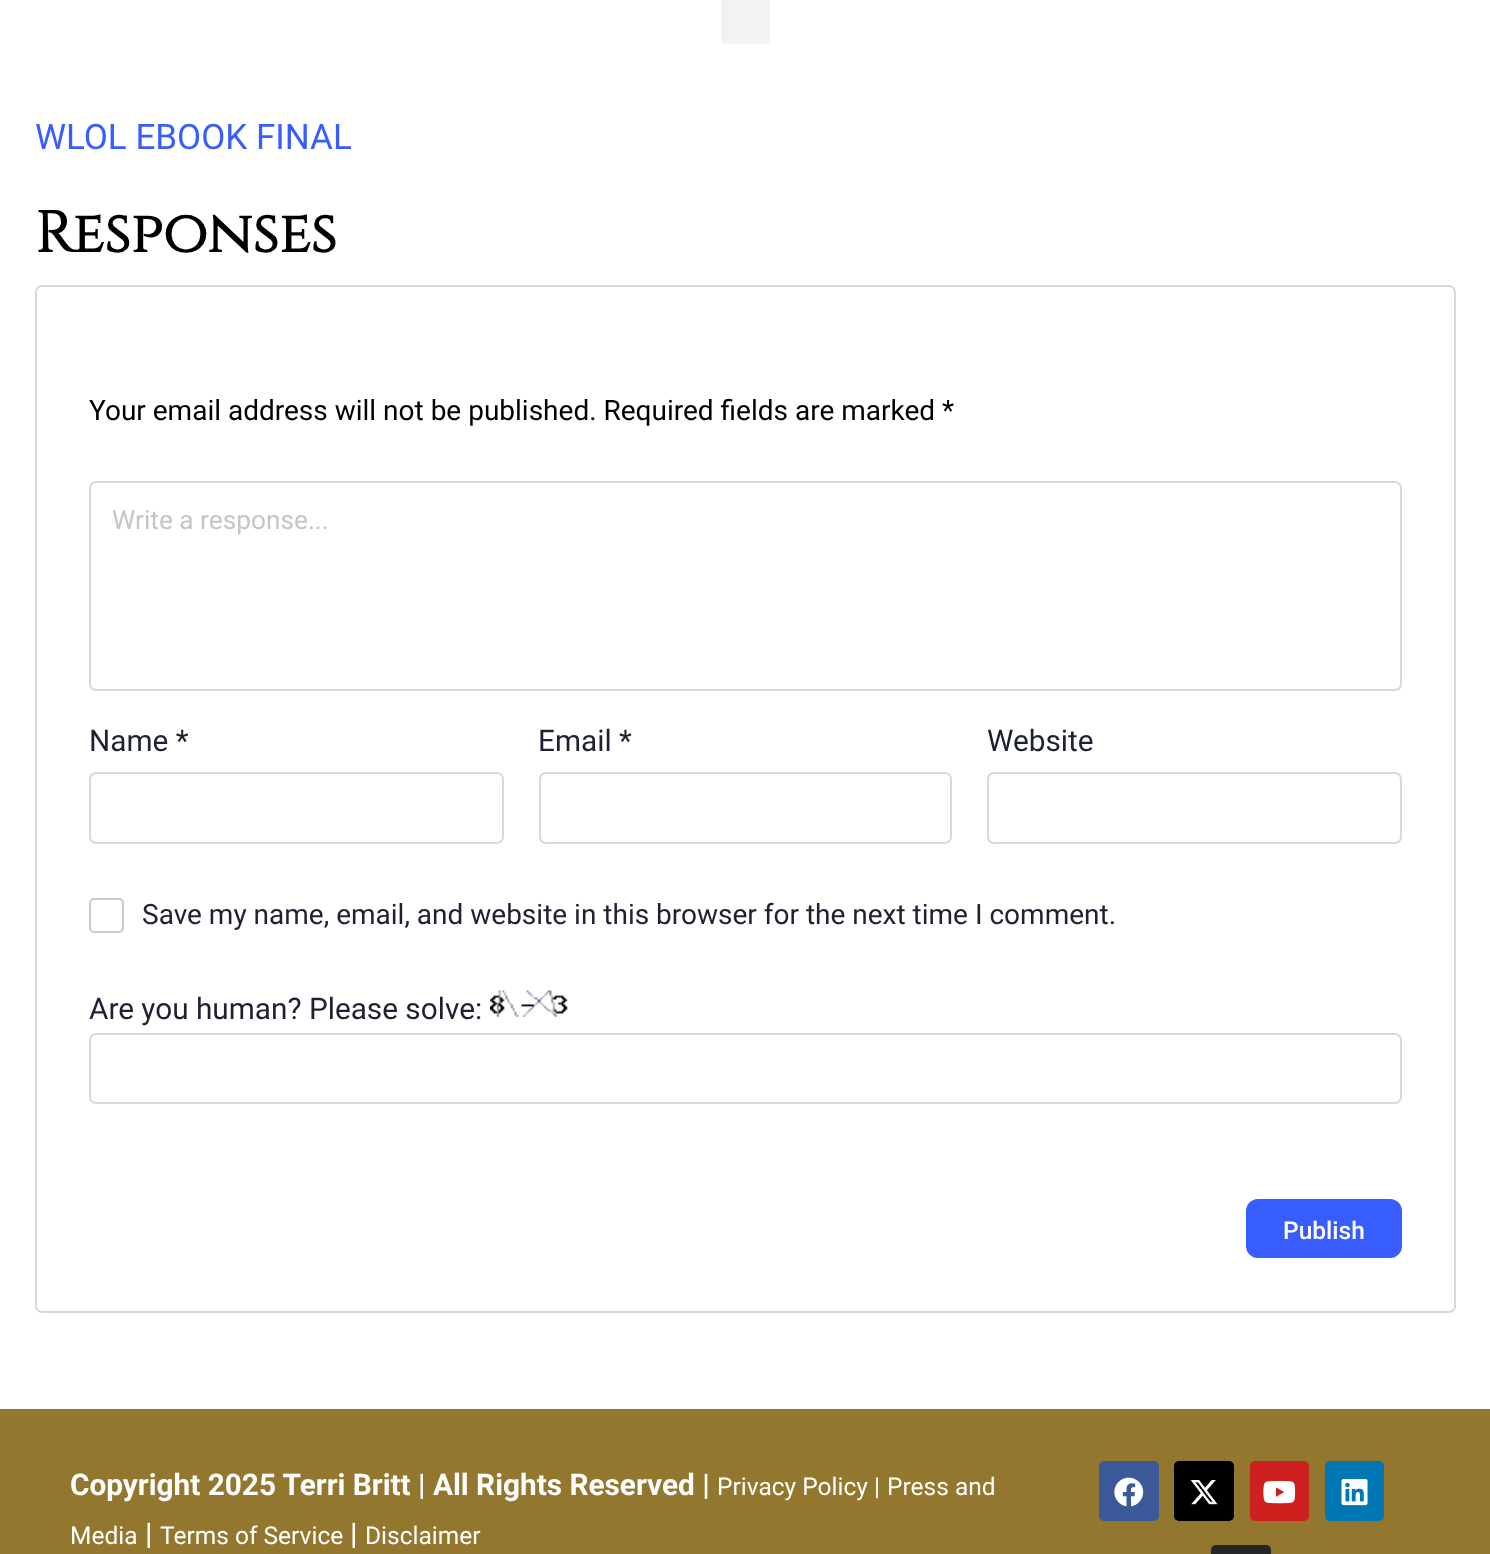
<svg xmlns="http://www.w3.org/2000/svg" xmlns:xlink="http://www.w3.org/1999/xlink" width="1490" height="1554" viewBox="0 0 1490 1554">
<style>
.cls-1{font:35px Roboto;fill:#385dff}
.cls-2{font:bold 57.75px Cinzel;fill:#000000}
.cls-3{font:28px Roboto;fill:#000000}
.cls-4{font:26.25px Roboto;fill:#c3c6c9}
.cls-5{font:29.75px Roboto;fill:#1e2132}
.cls-6{font:28px Roboto;fill:#1e2132}
.cls-7{font:500 24.5px Roboto;fill:#ffffff}
.cls-8{font:bold 29.75px Roboto;fill:#ffffff}
.cls-9{font:24.5px Roboto;fill:#ffffff}
</style>
<rect width="100%" height="100%" fill="#ffffff"/>
<rect fill="#f2f2f2" x="721" y="-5" width="49" height="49" rx="5"/>
<rect fill="none" stroke="#d6d9dd" stroke-width="2" x="36" y="286" width="1419" height="1026" rx="6"/>
<rect fill="none" stroke="#d6d9dd" stroke-width="2" x="90" y="482" width="1311" height="208" rx="6"/>
<rect fill="none" stroke="#d6d9dd" stroke-width="2" x="90" y="773" width="413" height="70" rx="6"/>
<rect fill="none" stroke="#d6d9dd" stroke-width="2" x="540" y="773" width="411" height="70" rx="6"/>
<rect fill="none" stroke="#d6d9dd" stroke-width="2" x="988" y="773" width="413" height="70" rx="6"/>
<rect fill="none" stroke="#c9cbca" stroke-width="2" x="90" y="899" width="33" height="33" rx="4"/>
<image xlink:href="image0.png" x="490" y="990" width="78" height="27"/>
<rect fill="none" stroke="#d6d9dd" stroke-width="2" x="90" y="1034" width="1311" height="69" rx="6"/>
<rect fill="#385dff" stroke="#385dff" stroke-width="2" x="1247" y="1200" width="154" height="57" rx="11"/>
<rect fill="#94772e" x="0" y="1409" width="1490" height="145"/>
<rect fill="#3b5998" x="1099" y="1461" width="60" height="60" rx="5"/>
<image xlink:href="image1.png" x="1114" y="1477" width="30" height="30"/>
<rect fill="#000000" x="1174" y="1461" width="60" height="60" rx="5"/>
<image xlink:href="image2.png" x="1190" y="1480" width="28" height="25"/>
<rect fill="#cd201f" x="1250" y="1461" width="59" height="60" rx="5"/>
<image xlink:href="image3.png" x="1263" y="1480" width="33" height="24"/>
<rect fill="#0077b5" x="1325" y="1461" width="59" height="60" rx="5"/>
<image xlink:href="image4.png" x="1341" y="1479" width="27" height="27"/>
<rect fill="#262626" x="1211" y="1545" width="60" height="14" rx="5"/>
<text class="cls-1" x="35" y="149">WLOL EBOOK FINAL</text>
<text class="cls-2" x="35" y="252">Responses</text>
<text class="cls-3" x="89" y="420">Your email address will not be published. Required fields are marked *</text>
<text class="cls-4" x="112" y="529">Write a response...</text>
<text class="cls-5" x="89" y="751">Name *</text>
<text class="cls-5" x="538" y="751">Email *</text>
<text class="cls-5" x="987" y="751">Website</text>
<text class="cls-6" x="142" y="924">Save my name, email, and website in this browser for the next time I comment.</text>
<text class="cls-5" x="89" y="1019">Are you human? Please solve:</text>
<text class="cls-7" x="1283" y="1239">Publish</text>
<text class="cls-8" x="70" y="1495">Copyright 2025 Terri Britt | All Rights Reserved |</text>
<text class="cls-9" x="717" y="1495">Privacy Policy |</text>
<text class="cls-9" x="887" y="1495">Press and</text>
<text class="cls-9" x="70" y="1544">Media</text>
<text class="cls-8" x="145" y="1544">|</text>
<text class="cls-9" x="160" y="1544">Terms of Service</text>
<text class="cls-8" x="350" y="1544">|</text>
<text class="cls-9" x="365" y="1544">Disclaimer</text>
</svg>
